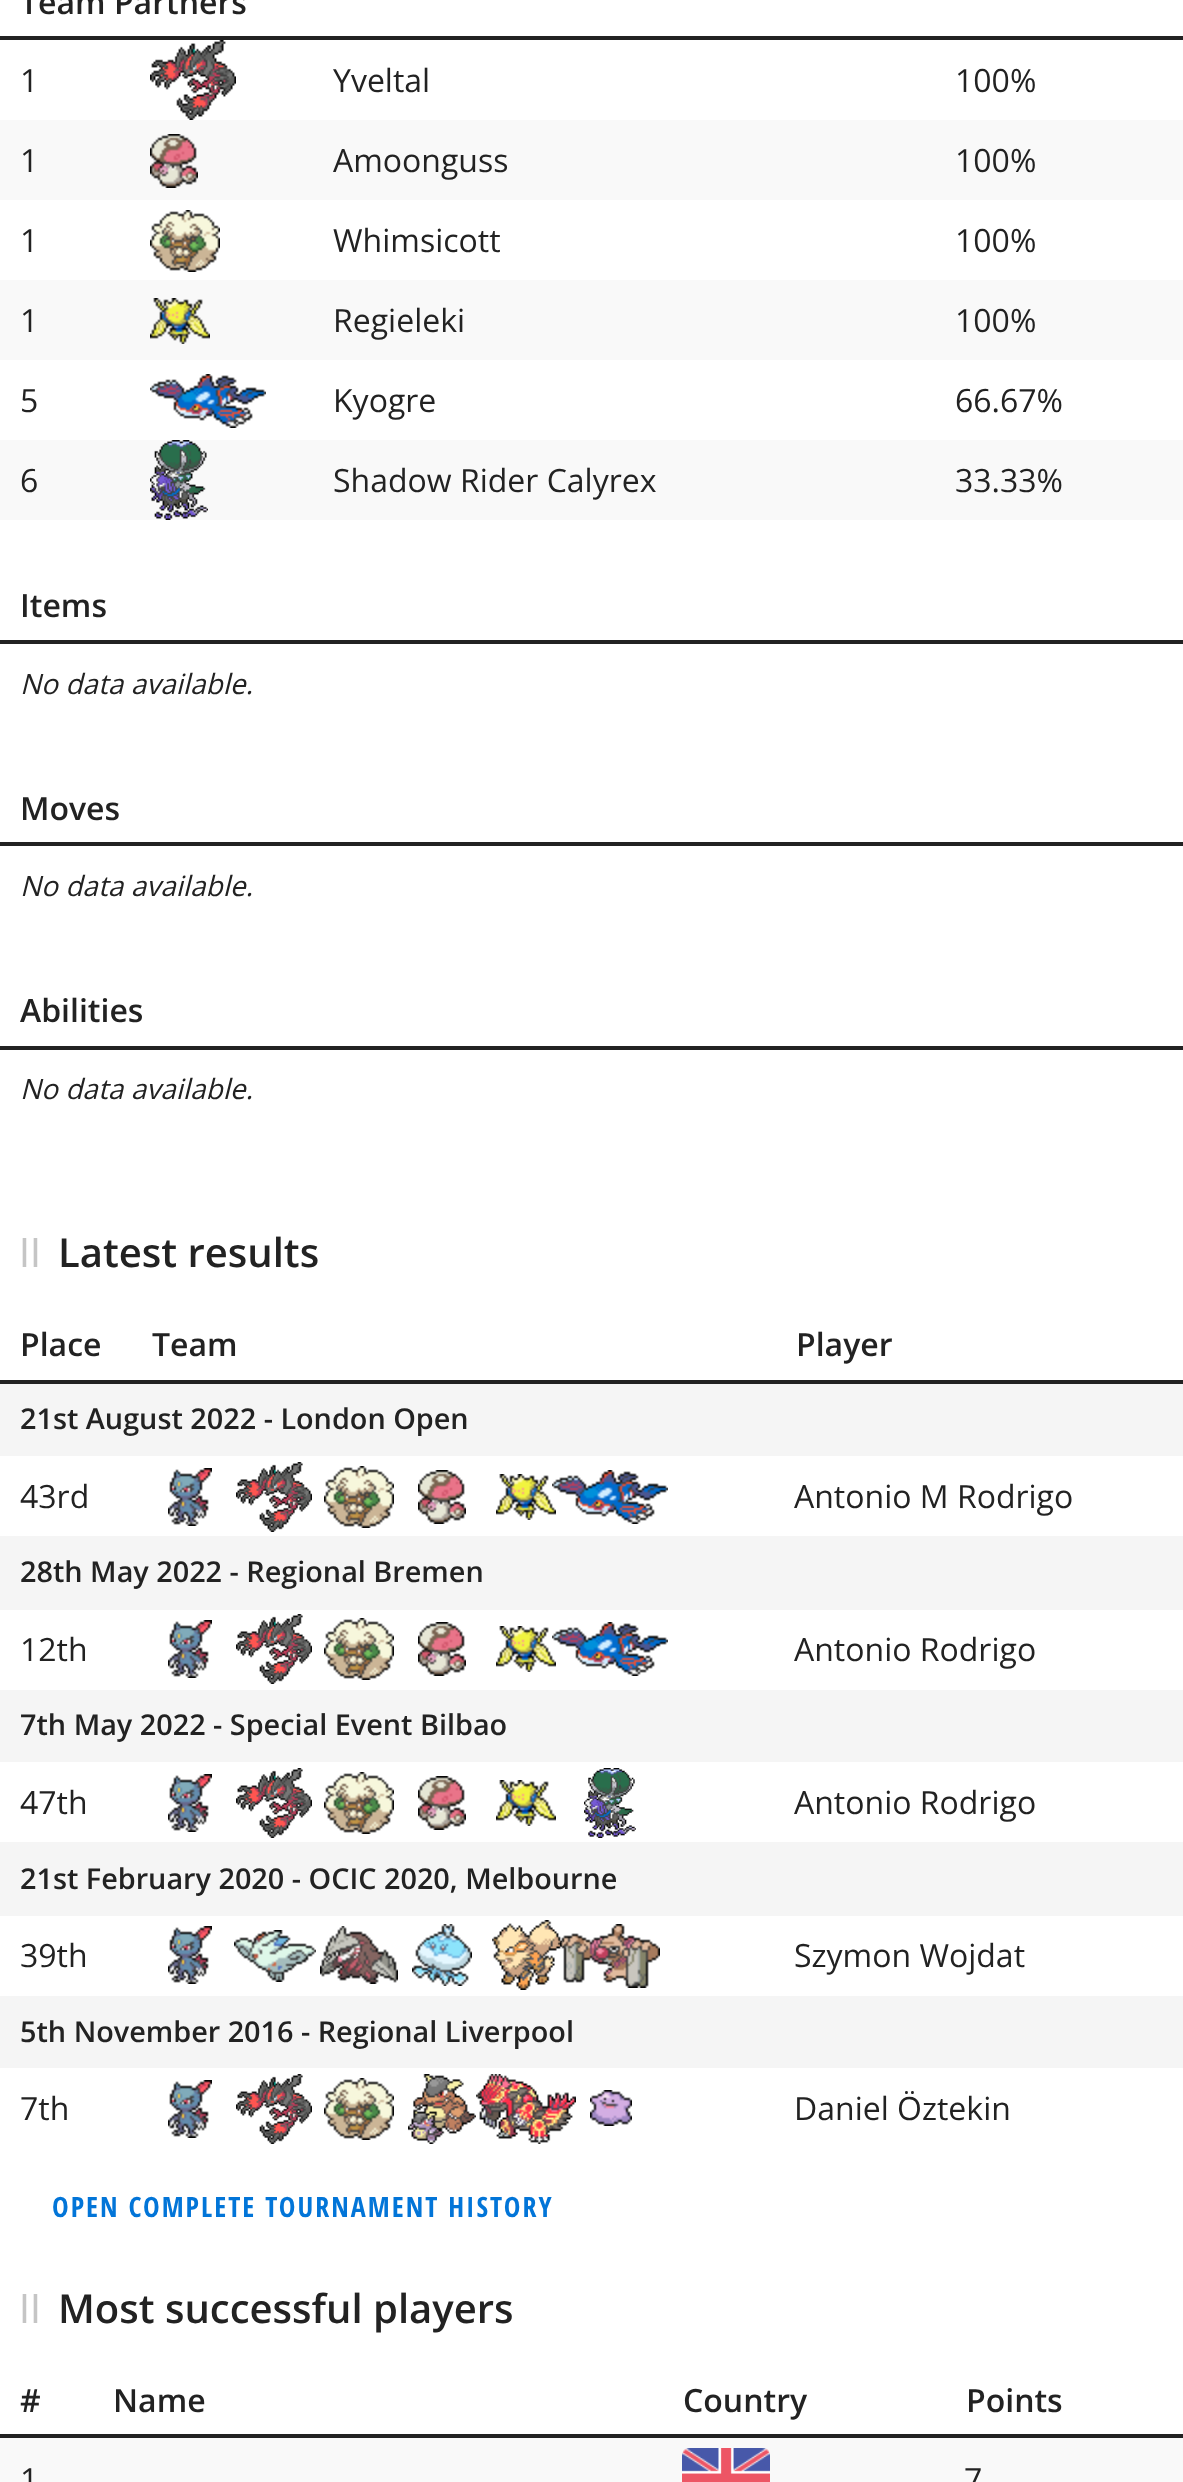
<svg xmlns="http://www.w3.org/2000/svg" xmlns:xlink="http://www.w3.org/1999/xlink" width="1183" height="2482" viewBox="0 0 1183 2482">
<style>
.cls-1{font:600 32px Open Sans;fill:#222222}
.cls-2{font:32px Open Sans;fill:#222222}
.cls-3{font:italic 28px Open Sans;fill:#222222}
.cls-4{font:40px Liberation Sans;letter-spacing:2px;fill:#c5c5c5}
.cls-5{font:600 40px Open Sans;fill:#222222}
.cls-6{font:600 28.8px Open Sans;fill:#222222}
.cls-7{font:bold 28px Open Sans Condensed;letter-spacing:2px;fill:#0275d8}
</style>
<rect width="100%" height="100%" fill="#ffffff"/>
<rect fill="#222222" x="0" y="36" width="1183" height="4"/>
<image xlink:href="image0.png" x="150" y="40" width="86" height="80"/>
<rect fill="#f9f9f9" x="0" y="120" width="1183" height="80"/>
<image xlink:href="image1.png" x="150" y="134" width="48" height="54"/>
<image xlink:href="image2.png" x="150" y="210" width="70" height="62"/>
<rect fill="#f9f9f9" x="0" y="280" width="1183" height="80"/>
<image xlink:href="image3.png" x="150" y="298" width="60" height="46"/>
<image xlink:href="image4.png" x="150" y="374" width="116" height="54"/>
<rect fill="#f9f9f9" x="0" y="440" width="1183" height="80"/>
<image xlink:href="image5.png" x="150" y="440" width="58" height="80"/>
<rect fill="#222222" x="0" y="640" width="1183" height="4"/>
<rect fill="#222222" x="0" y="842" width="1183" height="4"/>
<rect fill="#222222" x="0" y="1046" width="1183" height="4"/>
<rect fill="#222222" x="0" y="1380" width="1183" height="4"/>
<rect fill="#f5f5f5" x="0" y="1384" width="1183" height="72"/>
<image xlink:href="image6.png" x="168" y="1468" width="44" height="58"/>
<image xlink:href="image7.png" x="236" y="1462" width="76" height="70"/>
<image xlink:href="image2.png" x="324" y="1466" width="70" height="62"/>
<image xlink:href="image8.png" x="418" y="1470" width="48" height="54"/>
<image xlink:href="image9.png" x="496" y="1474" width="60" height="46"/>
<image xlink:href="image10.png" x="552" y="1470" width="116" height="54"/>
<rect fill="#f5f5f5" x="0" y="1536" width="1183" height="74"/>
<image xlink:href="image6.png" x="168" y="1620" width="44" height="58"/>
<image xlink:href="image11.png" x="236" y="1614" width="76" height="70"/>
<image xlink:href="image2.png" x="324" y="1618" width="70" height="62"/>
<image xlink:href="image8.png" x="418" y="1622" width="48" height="54"/>
<image xlink:href="image9.png" x="496" y="1626" width="60" height="46"/>
<image xlink:href="image10.png" x="552" y="1622" width="116" height="54"/>
<rect fill="#f5f5f5" x="0" y="1690" width="1183" height="72"/>
<image xlink:href="image6.png" x="168" y="1774" width="44" height="58"/>
<image xlink:href="image12.png" x="236" y="1768" width="76" height="70"/>
<image xlink:href="image2.png" x="324" y="1772" width="70" height="62"/>
<image xlink:href="image8.png" x="418" y="1776" width="48" height="54"/>
<image xlink:href="image9.png" x="496" y="1780" width="60" height="46"/>
<image xlink:href="image13.png" x="584" y="1768" width="52" height="70"/>
<rect fill="#f5f5f5" x="0" y="1842" width="1183" height="74"/>
<image xlink:href="image6.png" x="168" y="1926" width="44" height="58"/>
<image xlink:href="image14.png" x="234" y="1930" width="82" height="52"/>
<image xlink:href="image15.png" x="320" y="1926" width="78" height="58"/>
<image xlink:href="image16.png" x="412" y="1924" width="60" height="62"/>
<image xlink:href="image17.png" x="492" y="1920" width="70" height="70"/>
<image xlink:href="image18.png" x="560" y="1924" width="100" height="64"/>
<rect fill="#f5f5f5" x="0" y="1996" width="1183" height="72"/>
<image xlink:href="image6.png" x="168" y="2080" width="44" height="58"/>
<image xlink:href="image19.png" x="236" y="2074" width="76" height="70"/>
<image xlink:href="image2.png" x="324" y="2078" width="70" height="62"/>
<image xlink:href="image20.png" x="408" y="2074" width="68" height="70"/>
<image xlink:href="image21.png" x="476" y="2074" width="100" height="70"/>
<image xlink:href="image22.png" x="590" y="2090" width="42" height="36"/>
<rect fill="#222222" x="0" y="2434" width="1183" height="4"/>
<rect fill="#f9f9f9" x="0" y="2438" width="1183" height="44"/>
<image xlink:href="image23.png" x="682" y="2448" width="88" height="34"/>
<text class="cls-1" x="20" y="14">Team Partners</text>
<text class="cls-2" x="20" y="92">1</text>
<text class="cls-2" x="333" y="92">Yveltal</text>
<text class="cls-2" x="955" y="92">100%</text>
<text class="cls-2" x="20" y="172">1</text>
<text class="cls-2" x="333" y="172">Amoonguss</text>
<text class="cls-2" x="955" y="172">100%</text>
<text class="cls-2" x="20" y="252">1</text>
<text class="cls-2" x="333" y="252">Whimsicott</text>
<text class="cls-2" x="955" y="252">100%</text>
<text class="cls-2" x="20" y="332">1</text>
<text class="cls-2" x="333" y="332">Regieleki</text>
<text class="cls-2" x="955" y="332">100%</text>
<text class="cls-2" x="20" y="412">5</text>
<text class="cls-2" x="333" y="412">Kyogre</text>
<text class="cls-2" x="955" y="412">66.67%</text>
<text class="cls-2" x="20" y="492">6</text>
<text class="cls-2" x="333" y="492">Shadow Rider Calyrex</text>
<text class="cls-2" x="955" y="492">33.33%</text>
<text class="cls-1" x="20" y="617">Items</text>
<text class="cls-3" x="20" y="694">No data available.</text>
<text class="cls-1" x="20" y="820">Moves</text>
<text class="cls-3" x="20" y="896">No data available.</text>
<text class="cls-1" x="20" y="1022">Abilities</text>
<text class="cls-3" x="20" y="1099">No data available.</text>
<text class="cls-4" x="20" y="1267">ll</text>
<text class="cls-5" x="58" y="1267">Latest results</text>
<text class="cls-1" x="20" y="1356">Place</text>
<text class="cls-1" x="152" y="1356">Team</text>
<text class="cls-1" x="796" y="1356">Player</text>
<text class="cls-6" x="20" y="1429">21st August 2022 - London Open</text>
<text class="cls-2" x="20" y="1508">43rd</text>
<text class="cls-2" x="794" y="1508">Antonio M Rodrigo</text>
<text class="cls-6" x="20" y="1582">28th May 2022 - Regional Bremen</text>
<text class="cls-2" x="20" y="1661">12th</text>
<text class="cls-2" x="794" y="1661">Antonio Rodrigo</text>
<text class="cls-6" x="20" y="1735">7th May 2022 - Special Event Bilbao</text>
<text class="cls-2" x="20" y="1814">47th</text>
<text class="cls-2" x="794" y="1814">Antonio Rodrigo</text>
<text class="cls-6" x="20" y="1889">21st February 2020 - OCIC 2020, Melbourne</text>
<text class="cls-2" x="20" y="1967">39th</text>
<text class="cls-2" x="794" y="1967">Szymon Wojdat</text>
<text class="cls-6" x="20" y="2042">5th November 2016 - Regional Liverpool</text>
<text class="cls-2" x="20" y="2120">7th</text>
<text class="cls-2" x="794" y="2120">Daniel Öztekin</text>
<text class="cls-7" x="52" y="2217">OPEN COMPLETE TOURNAMENT HISTORY</text>
<text class="cls-4" x="20" y="2323">ll</text>
<text class="cls-5" x="58" y="2323">Most successful players</text>
<text class="cls-1" x="20" y="2412">#</text>
<text class="cls-1" x="113" y="2412">Name</text>
<text class="cls-1" x="683" y="2412">Country</text>
<text class="cls-1" x="966" y="2412">Points</text>
<text class="cls-2" x="20" y="2491">1</text>
<text class="cls-2" x="964" y="2491">7</text>
</svg>
